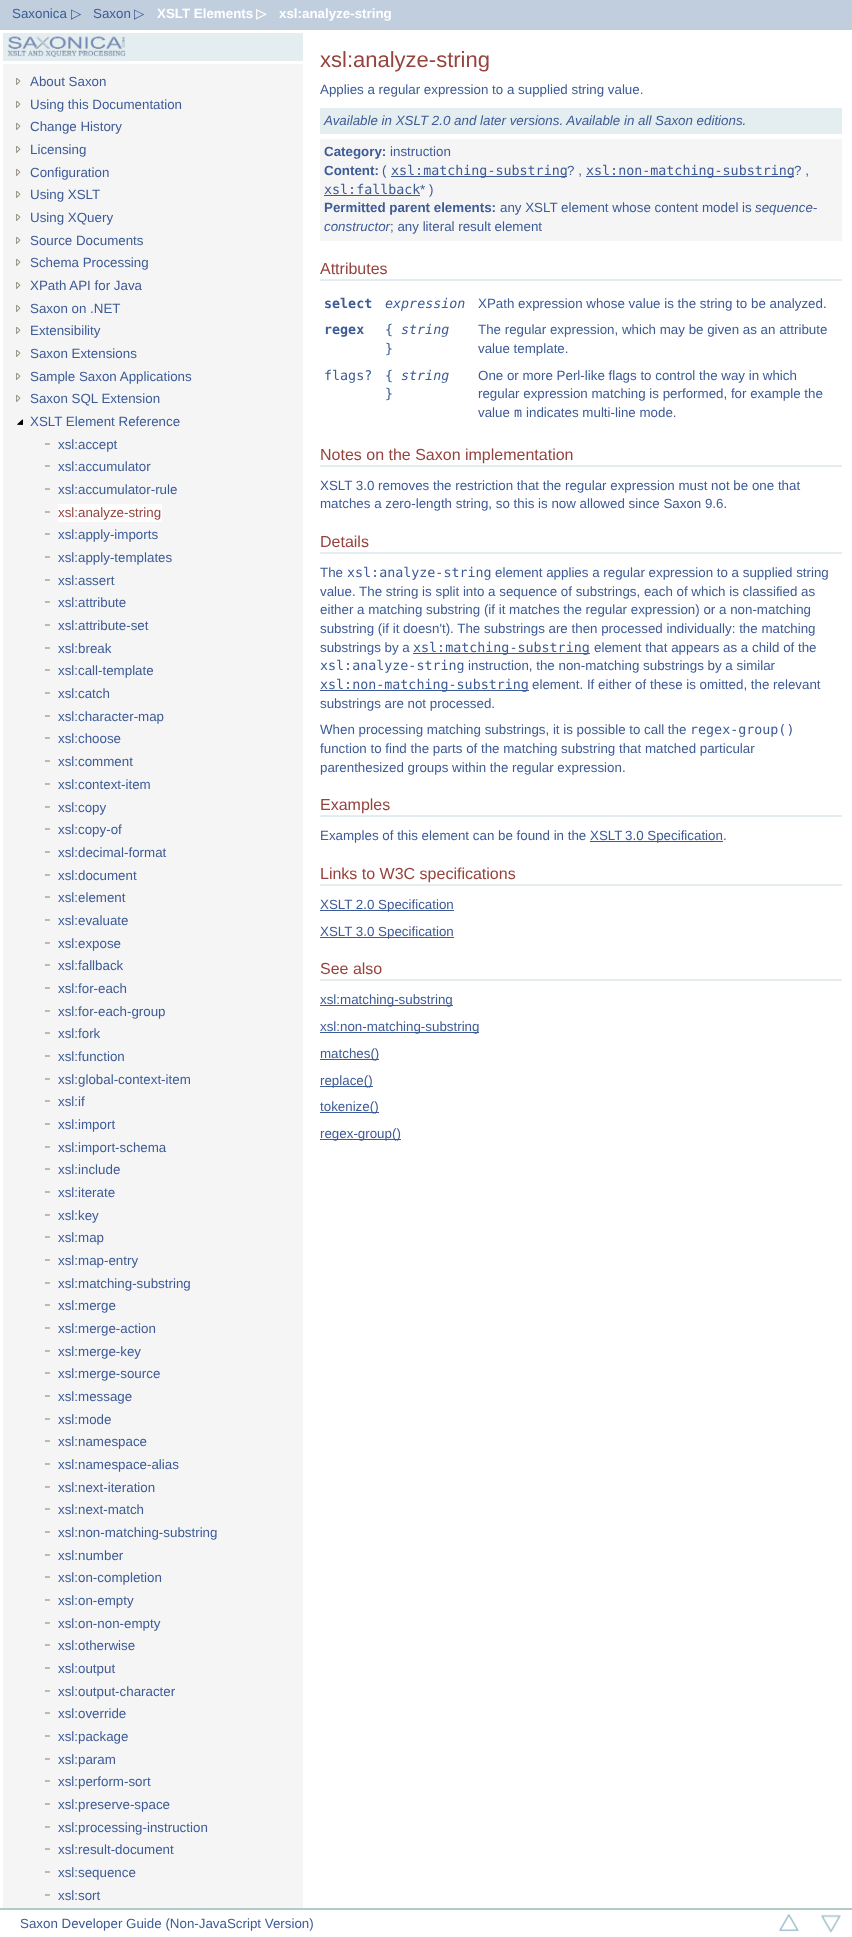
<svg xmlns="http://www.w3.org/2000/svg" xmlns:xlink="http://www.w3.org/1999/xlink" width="852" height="1937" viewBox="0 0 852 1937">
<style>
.cls-1{font:13.35px Liberation Sans;fill:#3d5b96}
.cls-2{font:13.35px DejaVu Sans;fill:#3d5b96}
.cls-3{font:bold 13.35px Liberation Sans;fill:#ffffff}
.cls-4{font:bold 13.35px DejaVu Sans;fill:#ffffff}
.cls-5{font:13.35px Liberation Sans;fill:#96433d}
.cls-6{font:22px Liberation Sans;fill:#96433d}
.cls-7{font:italic 13.35px Liberation Sans;fill:#3d5b96}
.cls-8{font:bold 13.35px Liberation Sans;fill:#3d5b96}
.cls-9{font:13.35px DejaVu Sans Mono;fill:#3d5b96}
.cls-10{font:16px Liberation Sans;fill:#96433d}
.cls-11{font:bold 13.35px DejaVu Sans Mono;fill:#3d5b96}
.cls-12{font:italic 13.35px DejaVu Sans Mono;fill:#3d5b96}
</style>
<rect width="100%" height="100%" fill="#ffffff"/>
<rect fill="#c1cede" x="0" y="0" width="852" height="30"/>
<rect fill="#f5f5f5" x="3" y="64" width="300" height="1844"/>
<rect fill="#e4eef0" x="3" y="33" width="300" height="28"/>
<image xlink:href="image0.png" x="7" y="36" width="119" height="21"/>
<image xlink:href="image1.png" x="16" y="78" width="5" height="7"/>
<image xlink:href="image1.png" x="16" y="101" width="5" height="7"/>
<image xlink:href="image1.png" x="16" y="123" width="5" height="7"/>
<image xlink:href="image1.png" x="16" y="146" width="5" height="7"/>
<image xlink:href="image1.png" x="16" y="169" width="5" height="7"/>
<image xlink:href="image1.png" x="16" y="191" width="5" height="7"/>
<image xlink:href="image1.png" x="16" y="214" width="5" height="7"/>
<image xlink:href="image1.png" x="16" y="237" width="5" height="7"/>
<image xlink:href="image1.png" x="16" y="259" width="5" height="7"/>
<image xlink:href="image1.png" x="16" y="282" width="5" height="7"/>
<image xlink:href="image1.png" x="16" y="305" width="5" height="7"/>
<image xlink:href="image1.png" x="16" y="327" width="5" height="7"/>
<image xlink:href="image1.png" x="16" y="350" width="5" height="7"/>
<image xlink:href="image1.png" x="16" y="373" width="5" height="7"/>
<image xlink:href="image1.png" x="16" y="395" width="5" height="7"/>
<image xlink:href="image2.png" x="17" y="419" width="6" height="6"/>
<image xlink:href="image3.png" x="45" y="443" width="5" height="2"/>
<image xlink:href="image3.png" x="45" y="465" width="5" height="2"/>
<image xlink:href="image3.png" x="45" y="488" width="5" height="2"/>
<image xlink:href="image3.png" x="45" y="511" width="5" height="2"/>
<rect fill="#ffffff" x="58" y="504" width="104" height="18"/>
<image xlink:href="image3.png" x="45" y="533" width="5" height="2"/>
<image xlink:href="image3.png" x="45" y="556" width="5" height="2"/>
<image xlink:href="image3.png" x="45" y="579" width="5" height="2"/>
<image xlink:href="image3.png" x="45" y="601" width="5" height="2"/>
<image xlink:href="image3.png" x="45" y="624" width="5" height="2"/>
<image xlink:href="image3.png" x="45" y="647" width="5" height="2"/>
<image xlink:href="image3.png" x="45" y="669" width="5" height="2"/>
<image xlink:href="image3.png" x="45" y="692" width="5" height="2"/>
<image xlink:href="image3.png" x="45" y="715" width="5" height="2"/>
<image xlink:href="image3.png" x="45" y="737" width="5" height="2"/>
<image xlink:href="image3.png" x="45" y="760" width="5" height="2"/>
<image xlink:href="image3.png" x="45" y="783" width="5" height="2"/>
<image xlink:href="image3.png" x="45" y="806" width="5" height="2"/>
<image xlink:href="image3.png" x="45" y="828" width="5" height="2"/>
<image xlink:href="image3.png" x="45" y="851" width="5" height="2"/>
<image xlink:href="image3.png" x="45" y="874" width="5" height="2"/>
<image xlink:href="image3.png" x="45" y="896" width="5" height="2"/>
<image xlink:href="image3.png" x="45" y="919" width="5" height="2"/>
<image xlink:href="image3.png" x="45" y="942" width="5" height="2"/>
<image xlink:href="image3.png" x="45" y="964" width="5" height="2"/>
<image xlink:href="image3.png" x="45" y="987" width="5" height="2"/>
<image xlink:href="image3.png" x="45" y="1010" width="5" height="2"/>
<image xlink:href="image3.png" x="45" y="1032" width="5" height="2"/>
<image xlink:href="image3.png" x="45" y="1055" width="5" height="2"/>
<image xlink:href="image3.png" x="45" y="1078" width="5" height="2"/>
<image xlink:href="image3.png" x="45" y="1100" width="5" height="2"/>
<image xlink:href="image3.png" x="45" y="1123" width="5" height="2"/>
<image xlink:href="image3.png" x="45" y="1146" width="5" height="2"/>
<image xlink:href="image3.png" x="45" y="1168" width="5" height="2"/>
<image xlink:href="image3.png" x="45" y="1191" width="5" height="2"/>
<image xlink:href="image3.png" x="45" y="1214" width="5" height="2"/>
<image xlink:href="image3.png" x="45" y="1236" width="5" height="2"/>
<image xlink:href="image3.png" x="45" y="1259" width="5" height="2"/>
<image xlink:href="image3.png" x="45" y="1282" width="5" height="2"/>
<image xlink:href="image3.png" x="45" y="1304" width="5" height="2"/>
<image xlink:href="image3.png" x="45" y="1327" width="5" height="2"/>
<image xlink:href="image3.png" x="45" y="1350" width="5" height="2"/>
<image xlink:href="image3.png" x="45" y="1372" width="5" height="2"/>
<image xlink:href="image3.png" x="45" y="1395" width="5" height="2"/>
<image xlink:href="image3.png" x="45" y="1418" width="5" height="2"/>
<image xlink:href="image3.png" x="45" y="1440" width="5" height="2"/>
<image xlink:href="image3.png" x="45" y="1463" width="5" height="2"/>
<image xlink:href="image3.png" x="45" y="1486" width="5" height="2"/>
<image xlink:href="image3.png" x="45" y="1508" width="5" height="2"/>
<image xlink:href="image3.png" x="45" y="1531" width="5" height="2"/>
<image xlink:href="image3.png" x="45" y="1554" width="5" height="2"/>
<image xlink:href="image3.png" x="45" y="1576" width="5" height="2"/>
<image xlink:href="image3.png" x="45" y="1599" width="5" height="2"/>
<image xlink:href="image3.png" x="45" y="1622" width="5" height="2"/>
<image xlink:href="image3.png" x="45" y="1644" width="5" height="2"/>
<image xlink:href="image3.png" x="45" y="1667" width="5" height="2"/>
<image xlink:href="image3.png" x="45" y="1690" width="5" height="2"/>
<image xlink:href="image3.png" x="45" y="1712" width="5" height="2"/>
<image xlink:href="image3.png" x="45" y="1735" width="5" height="2"/>
<image xlink:href="image3.png" x="45" y="1758" width="5" height="2"/>
<image xlink:href="image3.png" x="45" y="1780" width="5" height="2"/>
<image xlink:href="image3.png" x="45" y="1803" width="5" height="2"/>
<image xlink:href="image3.png" x="45" y="1826" width="5" height="2"/>
<image xlink:href="image3.png" x="45" y="1848" width="5" height="2"/>
<image xlink:href="image3.png" x="45" y="1871" width="5" height="2"/>
<image xlink:href="image3.png" x="45" y="1894" width="5" height="2"/>
<rect fill="#e4eef0" x="320" y="108" width="522" height="26"/>
<rect fill="#f5f5f5" x="320" y="139" width="522" height="102"/>
<rect fill="#3d5b96" x="391" y="176" width="176" height="1"/>
<rect fill="#3d5b96" x="586" y="176" width="208" height="1"/>
<rect fill="#3d5b96" x="324" y="195" width="96" height="1"/>
<rect fill="#e4eef0" x="320" y="279" width="522" height="2"/>
<rect fill="#e4eef0" x="320" y="465" width="522" height="2"/>
<rect fill="#e4eef0" x="320" y="552" width="522" height="2"/>
<rect fill="#3d5b96" x="413" y="653" width="177" height="1"/>
<rect fill="#3d5b96" x="320" y="690" width="209" height="1"/>
<rect fill="#e4eef0" x="320" y="815" width="522" height="2"/>
<rect fill="#3d5b96" x="590" y="841" width="133" height="1"/>
<rect fill="#e4eef0" x="320" y="884" width="522" height="2"/>
<rect fill="#3d5b96" x="320" y="910" width="134" height="1"/>
<rect fill="#3d5b96" x="320" y="937" width="134" height="1"/>
<rect fill="#e4eef0" x="320" y="979" width="522" height="2"/>
<rect fill="#3d5b96" x="320" y="1005" width="133" height="1"/>
<rect fill="#3d5b96" x="320" y="1032" width="159" height="1"/>
<rect fill="#3d5b96" x="320" y="1059" width="59" height="1"/>
<rect fill="#3d5b96" x="320" y="1086" width="53" height="1"/>
<rect fill="#3d5b96" x="320" y="1112" width="59" height="1"/>
<rect fill="#3d5b96" x="320" y="1139" width="81" height="1"/>
<rect fill="#b1ccc7" x="0" y="1908" width="852" height="2"/>
<image xlink:href="image4.png" x="779" y="1914" width="20" height="18"/>
<image xlink:href="image5.png" x="821" y="1914" width="20" height="19"/>
<text class="cls-1" x="12" y="18">Saxonica</text>
<text class="cls-2" x="71" y="18">▷</text>
<text class="cls-1" x="93" y="18">Saxon</text>
<text class="cls-2" x="134" y="18">▷</text>
<text class="cls-3" x="157" y="18">XSLT Elements</text>
<text class="cls-4" x="256" y="18">▷</text>
<text class="cls-3" x="279" y="18">xsl:analyze-string</text>
<text class="cls-1"><tspan x="30" y="86">About Saxon</tspan><tspan x="30" y="109">Using this Documentation</tspan><tspan x="30" y="131">Change History</tspan><tspan x="30" y="154">Licensing</tspan><tspan x="30" y="177">Configuration</tspan><tspan x="30" y="199">Using XSLT</tspan><tspan x="30" y="222">Using XQuery</tspan><tspan x="30" y="245">Source Documents</tspan><tspan x="30" y="267">Schema Processing</tspan><tspan x="30" y="290">XPath API for Java</tspan><tspan x="30" y="313">Saxon on .NET</tspan><tspan x="30" y="335">Extensibility</tspan><tspan x="30" y="358">Saxon Extensions</tspan><tspan x="30" y="381">Sample Saxon Applications</tspan><tspan x="30" y="403">Saxon SQL Extension</tspan><tspan x="30" y="426">XSLT Element Reference</tspan></text>
<text class="cls-1"><tspan x="58" y="449">xsl:accept</tspan><tspan x="58" y="471">xsl:accumulator</tspan><tspan x="58" y="494">xsl:accumulator-rule</tspan></text>
<text class="cls-5" x="58" y="517">xsl:analyze-string</text>
<text class="cls-1"><tspan x="58" y="539">xsl:apply-imports</tspan><tspan x="58" y="562">xsl:apply-templates</tspan><tspan x="58" y="585">xsl:assert</tspan><tspan x="58" y="607">xsl:attribute</tspan><tspan x="58" y="630">xsl:attribute-set</tspan><tspan x="58" y="653">xsl:break</tspan><tspan x="58" y="675">xsl:call-template</tspan><tspan x="58" y="698">xsl:catch</tspan><tspan x="58" y="721">xsl:character-map</tspan><tspan x="58" y="743">xsl:choose</tspan><tspan x="58" y="766">xsl:comment</tspan><tspan x="58" y="789">xsl:context-item</tspan><tspan x="58" y="812">xsl:copy</tspan><tspan x="58" y="834">xsl:copy-of</tspan><tspan x="58" y="857">xsl:decimal-format</tspan><tspan x="58" y="880">xsl:document</tspan><tspan x="58" y="902">xsl:element</tspan><tspan x="58" y="925">xsl:evaluate</tspan><tspan x="58" y="948">xsl:expose</tspan><tspan x="58" y="970">xsl:fallback</tspan><tspan x="58" y="993">xsl:for-each</tspan><tspan x="58" y="1016">xsl:for-each-group</tspan><tspan x="58" y="1038">xsl:fork</tspan><tspan x="58" y="1061">xsl:function</tspan><tspan x="58" y="1084">xsl:global-context-item</tspan><tspan x="58" y="1106">xsl:if</tspan><tspan x="58" y="1129">xsl:import</tspan><tspan x="58" y="1152">xsl:import-schema</tspan><tspan x="58" y="1174">xsl:include</tspan><tspan x="58" y="1197">xsl:iterate</tspan><tspan x="58" y="1220">xsl:key</tspan><tspan x="58" y="1242">xsl:map</tspan><tspan x="58" y="1265">xsl:map-entry</tspan><tspan x="58" y="1288">xsl:matching-substring</tspan><tspan x="58" y="1310">xsl:merge</tspan><tspan x="58" y="1333">xsl:merge-action</tspan><tspan x="58" y="1356">xsl:merge-key</tspan><tspan x="58" y="1378">xsl:merge-source</tspan><tspan x="58" y="1401">xsl:message</tspan><tspan x="58" y="1424">xsl:mode</tspan><tspan x="58" y="1446">xsl:namespace</tspan><tspan x="58" y="1469">xsl:namespace-alias</tspan><tspan x="58" y="1492">xsl:next-iteration</tspan><tspan x="58" y="1514">xsl:next-match</tspan><tspan x="58" y="1537">xsl:non-matching-substring</tspan><tspan x="58" y="1560">xsl:number</tspan><tspan x="58" y="1582">xsl:on-completion</tspan><tspan x="58" y="1605">xsl:on-empty</tspan><tspan x="58" y="1628">xsl:on-non-empty</tspan><tspan x="58" y="1650">xsl:otherwise</tspan><tspan x="58" y="1673">xsl:output</tspan><tspan x="58" y="1696">xsl:output-character</tspan><tspan x="58" y="1718">xsl:override</tspan><tspan x="58" y="1741">xsl:package</tspan><tspan x="58" y="1764">xsl:param</tspan><tspan x="58" y="1786">xsl:perform-sort</tspan><tspan x="58" y="1809">xsl:preserve-space</tspan><tspan x="58" y="1832">xsl:processing-instruction</tspan><tspan x="58" y="1854">xsl:result-document</tspan><tspan x="58" y="1877">xsl:sequence</tspan><tspan x="58" y="1900">xsl:sort</tspan></text>
<text class="cls-6" x="320" y="67">xsl:analyze-string</text>
<text class="cls-1" x="320" y="94">Applies a regular expression to a supplied string value.</text>
<text class="cls-7" x="324" y="125">Available in XSLT 2.0 and later versions. Available in all Saxon editions.</text>
<text class="cls-8" x="324" y="156">Category:</text>
<text class="cls-1" x="390" y="156">instruction</text>
<text class="cls-8" x="324" y="175">Content:</text>
<text class="cls-1" x="382" y="175">(</text>
<text class="cls-9" x="391" y="175">xsl:matching-substring</text>
<text class="cls-1" x="567" y="175">? ,</text>
<text class="cls-9" x="586" y="175">xsl:non-matching-substring</text>
<text class="cls-1" x="794" y="175">? ,</text>
<text class="cls-9" x="324" y="194">xsl:fallback</text>
<text class="cls-1" x="420" y="194">* )</text>
<text class="cls-8" x="324" y="212">Permitted parent elements:</text>
<text class="cls-1" x="500" y="212">any XSLT element whose content model is</text>
<text class="cls-7" x="755" y="212">sequence-</text>
<text class="cls-7" x="324" y="231">constructor</text>
<text class="cls-1" x="390" y="231">; any literal result element</text>
<text class="cls-10" x="320" y="274">Attributes</text>
<text class="cls-11" x="324" y="308">select</text>
<text class="cls-12" x="385" y="308">expression</text>
<text class="cls-1" x="478" y="308">XPath expression whose value is the string to be analyzed.</text>
<text class="cls-11" x="324" y="334">regex</text>
<text class="cls-9" x="385" y="334">{</text>
<text class="cls-12" x="401" y="334">string</text>
<text class="cls-9" x="385" y="353">}</text>
<text class="cls-1"><tspan x="478" y="334">The regular expression, which may be given as an attribute</tspan><tspan x="478" y="353">value template.</tspan></text>
<text class="cls-9" x="324" y="380">flags?</text>
<text class="cls-9" x="385" y="380">{</text>
<text class="cls-12" x="401" y="380">string</text>
<text class="cls-9" x="385" y="398">}</text>
<text class="cls-1"><tspan x="478" y="380">One or more Perl-like flags to control the way in which</tspan><tspan x="478" y="398">regular expression matching is performed, for example the</tspan><tspan x="478" y="417">value</tspan></text>
<text class="cls-9" x="514" y="417">m</text>
<text class="cls-1" x="526" y="417">indicates multi-line mode.</text>
<text class="cls-10" x="320" y="460">Notes on the Saxon implementation</text>
<text class="cls-1"><tspan x="320" y="490">XSLT 3.0 removes the restriction that the regular expression must not be one that</tspan><tspan x="320" y="508">matches a zero-length string, so this is now allowed since Saxon 9.6.</tspan></text>
<text class="cls-10" x="320" y="547">Details</text>
<text class="cls-1" x="320" y="577">The</text>
<text class="cls-9" x="347" y="577">xsl:analyze-string</text>
<text class="cls-1" x="495" y="577">element applies a regular expression to a supplied string</text>
<text class="cls-1"><tspan x="320" y="596">value. The string is split into a sequence of substrings, each of which is classified as</tspan><tspan x="320" y="614">either a matching substring (if it matches the regular expression) or a non-matching</tspan><tspan x="320" y="633">substring (if it doesn't). The substrings are then processed individually: the matching</tspan><tspan x="320" y="652">substrings by a</tspan></text>
<text class="cls-9" x="413" y="652">xsl:matching-substring</text>
<text class="cls-1" x="594" y="652">element that appears as a child of the</text>
<text class="cls-9" x="320" y="670">xsl:analyze-string</text>
<text class="cls-1" x="468" y="670">instruction, the non-matching substrings by a similar</text>
<text class="cls-9" x="320" y="689">xsl:non-matching-substring</text>
<text class="cls-1" x="532" y="689">element. If either of these is omitted, the relevant</text>
<text class="cls-1"><tspan x="320" y="708">substrings are not processed.</tspan><tspan x="320" y="734">When processing matching substrings, it is possible to call the</tspan></text>
<text class="cls-9" x="690" y="734">regex-group()</text>
<text class="cls-1"><tspan x="320" y="753">function to find the parts of the matching substring that matched particular</tspan><tspan x="320" y="772">parenthesized groups within the regular expression.</tspan></text>
<text class="cls-10" x="320" y="810">Examples</text>
<text class="cls-1" x="320" y="840">Examples of this element can be found in the XSLT</text>
<text class="cls-1" x="625" y="840">3.0 Specification.</text>
<text class="cls-10" x="320" y="879">Links to W3C specifications</text>
<text class="cls-1" x="320" y="909">XSLT 2.0 Specification</text>
<text class="cls-1" x="320" y="936">XSLT 3.0 Specification</text>
<text class="cls-10" x="320" y="974">See also</text>
<text class="cls-1" x="320" y="1004">xsl:matching-substring</text>
<text class="cls-1" x="320" y="1031">xsl:non-matching-substring</text>
<text class="cls-1" x="320" y="1058">matches()</text>
<text class="cls-1"><tspan x="320" y="1085">replace()</tspan><tspan x="320" y="1111">tokenize()</tspan></text>
<text class="cls-1" x="320" y="1138">regex-group()</text>
<text class="cls-1" x="20" y="1928">Saxon Developer Guide (Non-JavaScript Version)</text>
</svg>
